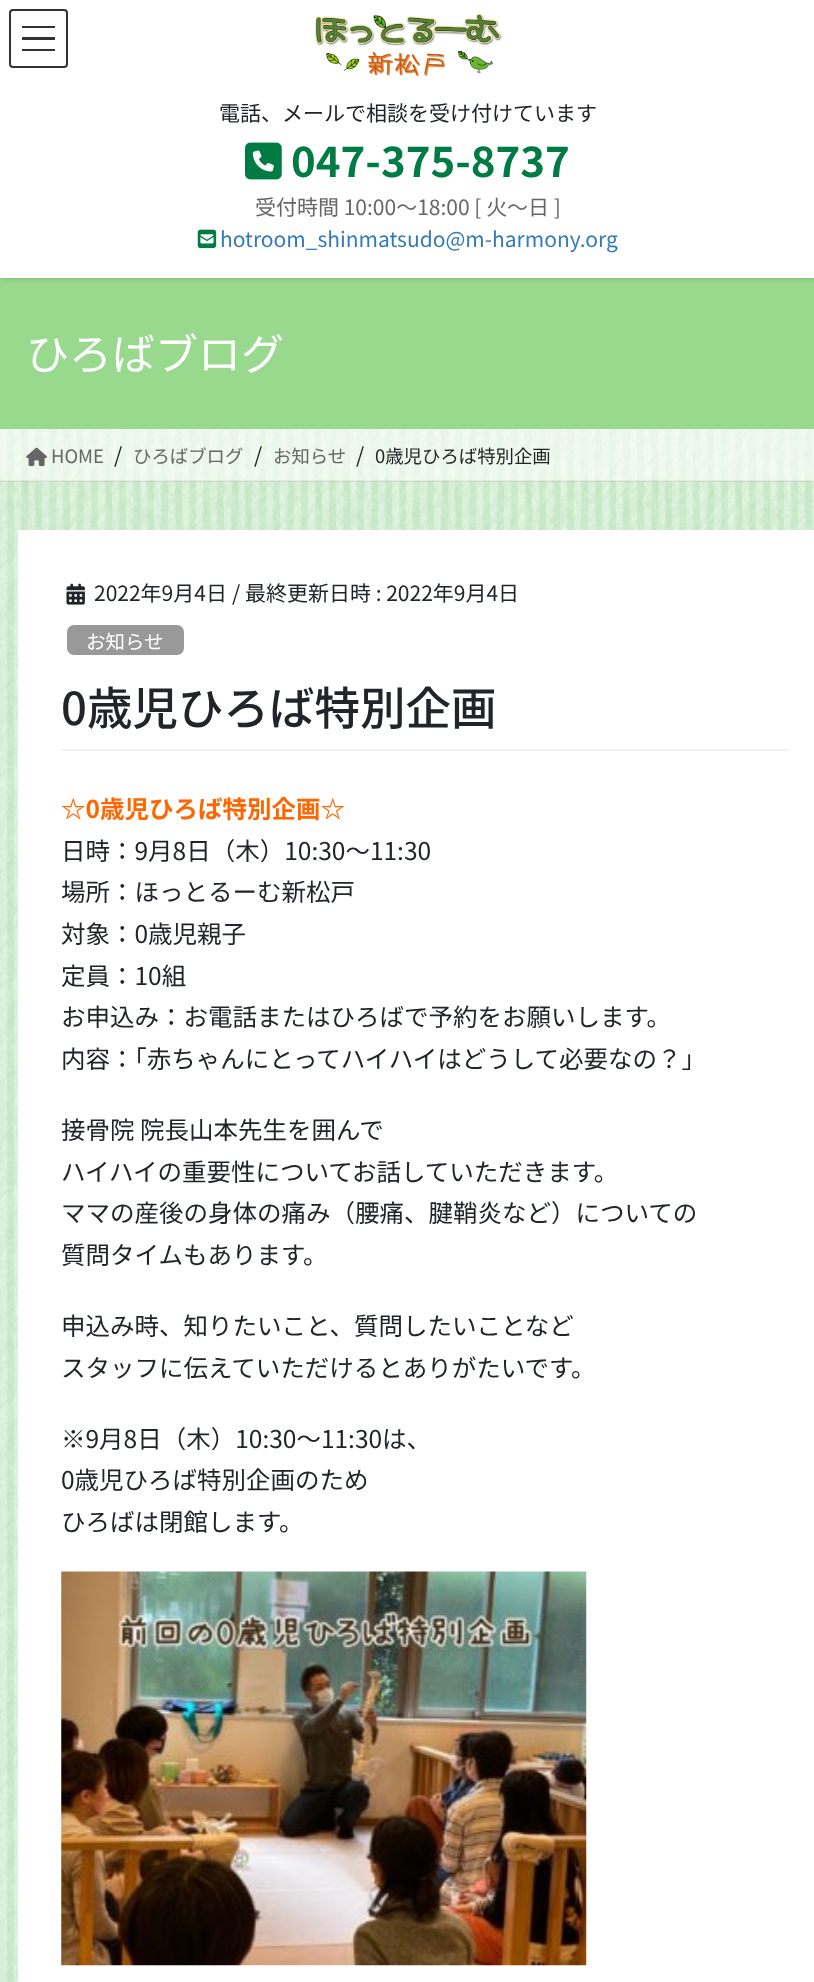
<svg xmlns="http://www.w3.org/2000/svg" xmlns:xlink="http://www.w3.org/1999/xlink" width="814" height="1982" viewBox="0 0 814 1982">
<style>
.cls-1{font:21px Noto Sans JP;fill:#212529}
.cls-2{font:bold 42px Noto Sans JP;fill:#007b43}
.cls-3{font:21px Noto Sans JP;fill:#666666}
.cls-4{font:21px Noto Sans JP;fill:#337ab7}
.cls-5{font:43px Noto Sans JP;fill:#ffffff}
.cls-6{font:18.4px Noto Sans JP;fill:#666666}
.cls-7{font:18.4px Noto Sans JP;fill:#212529}
.cls-8{font:19.5px Noto Sans JP;fill:#ffffff}
.cls-9{font:500 45.5px Noto Sans JP;fill:#212529}
.cls-10{font:bold 24.5px Noto Sans JP;fill:#ff6600}
.cls-11{font:24.5px Noto Sans JP;fill:#212529}
</style>
<rect width="100%" height="100%" fill="#ffffff"/>
<image xlink:href="image0.png" x="0" y="429" width="814" height="1553"/>
<rect fill="#98d98e" x="0" y="278" width="814" height="151"/>
<rect fill="#000000" fill-opacity="0.1" filter="blur(2.5px)" x="0" y="2" width="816" height="278"/>
<rect fill="#ffffff" x="0" y="0" width="814" height="278"/>
<rect fill="#333333" x="22" y="26" width="33" height="2"/>
<rect fill="#333333" x="22" y="37" width="33" height="3"/>
<rect fill="#333333" x="22" y="49" width="33" height="2"/>
<rect fill="none" stroke="#333333" stroke-width="2" x="10" y="10" width="57" height="57" rx="3"/>
<image xlink:href="image1.png" x="315" y="13" width="187" height="64"/>
<image xlink:href="image2.png" x="245" y="142" width="37" height="38"/>
<image xlink:href="image3.png" x="197" y="229" width="20" height="20"/>
<rect fill="#ffffff" fill-opacity="0.6" x="0" y="429" width="814" height="52"/>
<rect fill="#000000" fill-opacity="0.05" x="0" y="480" width="814" height="2"/>
<image xlink:href="image4.png" x="26" y="447" width="21" height="20"/>
<rect fill="#ffffff" x="18" y="530" width="796" height="1452"/>
<rect fill="#f2f2f2" x="61" y="749" width="728" height="2"/>
<image xlink:href="image5.png" x="66" y="583" width="19" height="22"/>
<rect fill="#999999" x="67" y="625" width="117" height="30" rx="7"/>
<image xlink:href="image6.png" x="61" y="1571" width="526" height="395"/>
<text class="cls-1" x="219" y="121">電話、メールで相談を受け付けています</text>
<text class="cls-2" x="291" y="177">047-375-8737</text>
<text class="cls-3" x="255" y="215">受付時間 10:00～18:00 [ 火～日 ]</text>
<text class="cls-4" x="220" y="247">hotroom_shinmatsudo@m-harmony.org</text>
<text class="cls-5" x="26" y="370">ひろばブログ</text>
<text class="cls-6" x="51" y="463">HOME</text>
<text class="cls-1" x="114" y="463">/</text>
<text class="cls-6" x="133" y="463">ひろばブログ</text>
<text class="cls-1" x="254" y="463">/</text>
<text class="cls-6" x="273" y="463">お知らせ</text>
<text class="cls-1" x="356" y="463">/</text>
<text class="cls-7" x="375" y="463">0歳児ひろば特別企画</text>
<text class="cls-1" x="94" y="601">2022年9月4日</text>
<text class="cls-1" x="232" y="601">/ 最終更新日時 : 2022年9月4日</text>
<text class="cls-8" x="86" y="649">お知らせ</text>
<text class="cls-9" x="61" y="725">0歳児ひろば特別企画</text>
<text class="cls-10" x="61" y="818">☆0歳児ひろば特別企画☆</text>
<text class="cls-11"><tspan x="61" y="860">日時：9月8日（木）10:30～11:30</tspan><tspan x="61" y="901">場所：ほっとるーむ新松戸</tspan><tspan x="61" y="943">対象：0歳児親子</tspan><tspan x="61" y="985">定員：10組</tspan><tspan x="61" y="1026">お申込み：お電話またはひろばで予約をお願いします。</tspan><tspan x="61" y="1068">内容：「赤ちゃんにとってハイハイはどうして必要なの？」</tspan></text>
<text class="cls-11"><tspan x="61" y="1139">接骨院 院長山本先生を囲んで</tspan><tspan x="61" y="1181">ハイハイの重要性についてお話していただきます。</tspan><tspan x="61" y="1222">ママの産後の身体の痛み（腰痛、腱鞘炎など）についての</tspan><tspan x="61" y="1264">質問タイムもあります。</tspan></text>
<text class="cls-11"><tspan x="61" y="1335">申込み時、知りたいこと、質問したいことなど</tspan><tspan x="61" y="1377">スタッフに伝えていただけるとありがたいです。</tspan></text>
<text class="cls-11"><tspan x="61" y="1448">※9月8日（木）10:30～11:30は、</tspan><tspan x="61" y="1489">0歳児ひろば特別企画のため</tspan><tspan x="61" y="1531">ひろばは閉館します。</tspan></text>
</svg>
